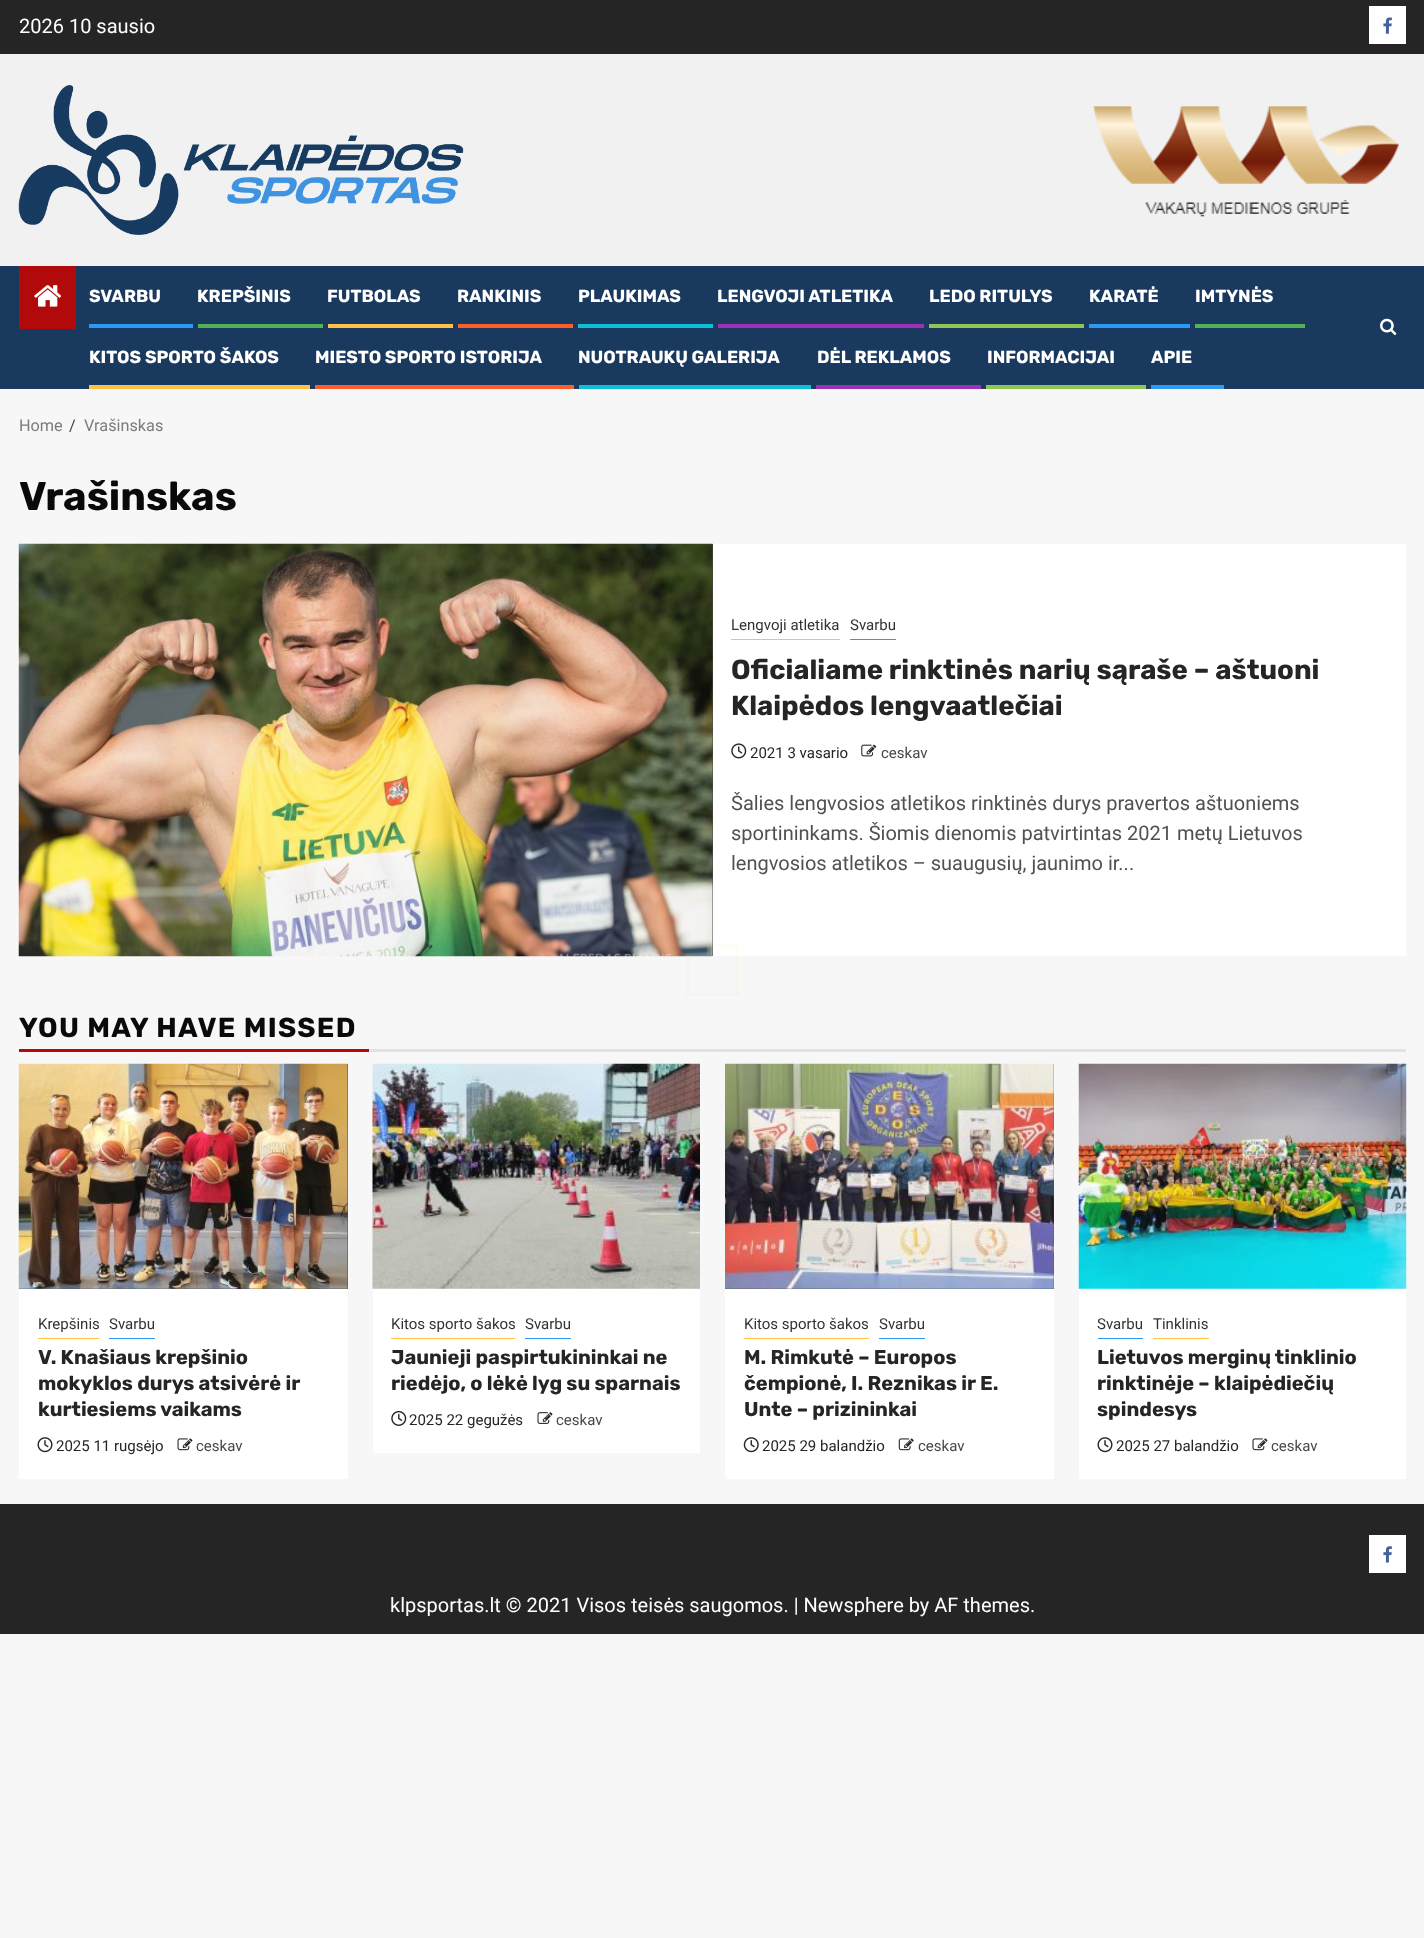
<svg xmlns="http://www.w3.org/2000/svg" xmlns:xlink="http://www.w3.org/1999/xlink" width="1424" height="1938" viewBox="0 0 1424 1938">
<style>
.cls-1{font:20px Roboto;fill:#ffffff}
.cls-2{font:bold 17.5px Rubik;fill:#ffffff}
.cls-3{font:16.25px Roboto;fill:#7c7c7c}
.cls-4{font:16.25px Roboto;fill:#41464d}
.cls-5{font:bold 40px Rubik;fill:#0a0a0a}
.cls-6{font:15px Roboto;fill:#333333}
.cls-7{font:bold 27.5px Rubik;fill:#252525}
.cls-8{font:15px Roboto;fill:#252525}
.cls-9{font:15px Roboto;fill:#484848}
.cls-10{font:20px Roboto;fill:#515151}
.cls-11{font:bold 27.5px Rubik;letter-spacing:1.25px;fill:#0a0a0a}
.cls-12{font:bold 20px Rubik;fill:#252525}
</style>
<rect width="100%" height="100%" fill="#f7f7f7"/>
<rect fill="#f1f1f1" x="0" y="54" width="1424" height="212"/>
<rect fill="#252525" x="0" y="0" width="1424" height="54"/>
<rect fill="#ffffff" x="1369" y="6" width="37" height="38"/>
<image xlink:href="image0.png" x="1383" y="17" width="9" height="17"/>
<image xlink:href="image1.png" x="18" y="85" width="446" height="150"/>
<image xlink:href="image2.png" x="1093" y="106" width="306" height="111"/>
<rect fill="#1a395f" x="0" y="266" width="1424" height="123"/>
<rect fill="#b20a0a" x="19" y="266" width="57" height="63"/>
<image xlink:href="image3.png" x="34" y="285" width="28" height="22"/>
<rect fill="#2a9af3" x="89" y="324" width="104" height="4"/>
<rect fill="#53b257" x="198" y="324" width="125" height="4"/>
<rect fill="#ffc247" x="328" y="324" width="125" height="4"/>
<rect fill="#ff5e2b" x="458" y="324" width="115" height="4"/>
<rect fill="#0abfd6" x="578" y="324" width="135" height="4"/>
<rect fill="#a030b3" x="718" y="324" width="206" height="4"/>
<rect fill="#90c551" x="929" y="324" width="155" height="4"/>
<rect fill="#2a9af3" x="1089" y="324" width="101" height="4"/>
<rect fill="#53b257" x="1195" y="324" width="110" height="4"/>
<rect fill="#ffc247" x="89" y="385" width="221" height="4"/>
<rect fill="#ff5e2b" x="315" y="385" width="259" height="4"/>
<rect fill="#0abfd6" x="579" y="385" width="232" height="4"/>
<rect fill="#a030b3" x="816" y="385" width="165" height="4"/>
<rect fill="#90c551" x="986" y="385" width="160" height="4"/>
<rect fill="#2a9af3" x="1151" y="385" width="73" height="4"/>
<image xlink:href="image4.png" x="1380" y="318" width="17" height="17"/>
<rect fill="#ffffff" x="713" y="544" width="693" height="412"/>
<rect fill="#484848" x="712" y="544" width="1" height="412"/>
<image xlink:href="image5.png" x="18" y="543" width="695" height="414"/>
<rect fill="#ffc247" x="731" y="639" width="109" height="1"/>
<rect fill="#2a9af3" x="850" y="639" width="46" height="1"/>
<image xlink:href="image6.png" x="731" y="743" width="16" height="16"/>
<image xlink:href="image7.png" x="861" y="744" width="16" height="13"/>
<rect fill="#b20a0a" x="19" y="1049" width="350" height="3"/>
<rect fill="#e2e2e2" x="369" y="1049" width="1037" height="3"/>
<rect fill="#ffffff" x="19" y="1289" width="329" height="190"/>
<rect fill="#484848" x="19" y="1064" width="329" height="225"/>
<image xlink:href="image8.png" x="18" y="1063" width="330" height="226"/>
<rect fill="#ffc247" x="38" y="1338" width="61" height="1"/>
<rect fill="#2a9af3" x="109" y="1338" width="46" height="1"/>
<image xlink:href="image9.png" x="37" y="1437" width="16" height="16"/>
<image xlink:href="image10.png" x="177" y="1438" width="16" height="13"/>
<rect fill="#ffffff" x="373" y="1288" width="327" height="165"/>
<image xlink:href="image11.png" x="372" y="1063" width="328" height="226"/>
<rect fill="#ffc247" x="391" y="1338" width="124" height="1"/>
<rect fill="#2a9af3" x="525" y="1338" width="46" height="1"/>
<image xlink:href="image12.png" x="391" y="1410" width="16" height="16"/>
<image xlink:href="image13.png" x="537" y="1412" width="16" height="12"/>
<rect fill="#ffffff" x="725" y="1289" width="329" height="190"/>
<rect fill="#484848" x="725" y="1064" width="329" height="225"/>
<image xlink:href="image14.png" x="725" y="1063" width="329" height="226"/>
<rect fill="#ffc247" x="744" y="1338" width="125" height="1"/>
<rect fill="#2a9af3" x="879" y="1338" width="46" height="1"/>
<image xlink:href="image15.png" x="743" y="1437" width="16" height="16"/>
<image xlink:href="image16.png" x="898" y="1438" width="16" height="13"/>
<rect fill="#ffffff" x="1079" y="1288" width="327" height="191"/>
<image xlink:href="image17.png" x="1078" y="1063" width="329" height="226"/>
<rect fill="#2a9af3" x="1098" y="1338" width="45" height="1"/>
<rect fill="#ffc247" x="1153" y="1338" width="56" height="1"/>
<image xlink:href="image9.png" x="1097" y="1437" width="16" height="16"/>
<image xlink:href="image10.png" x="1252" y="1438" width="16" height="13"/>
<rect fill="#252525" x="0" y="1504" width="1424" height="130"/>
<rect fill="#ffffff" x="1369" y="1535" width="37" height="38"/>
<image xlink:href="image18.png" x="1383" y="1546" width="9" height="17"/>
<rect fill="none" stroke="#ffbf3f" stroke-opacity="0.04" stroke-width="3" x="687.5" y="945.5" width="50" height="49"/>
<text class="cls-1" x="19" y="33">2026 10 sausio</text>
<text class="cls-2" x="89" y="302">SVARBU</text>
<text class="cls-2" x="197" y="302">KREPŠINIS</text>
<text class="cls-2" x="327" y="302">FUTBOLAS</text>
<text class="cls-2" x="457" y="302">RANKINIS</text>
<text class="cls-2" x="578" y="302">PLAUKIMAS</text>
<text class="cls-2" x="717" y="302">LENGVOJI ATLETIKA</text>
<text class="cls-2" x="929" y="302">LEDO RITULYS</text>
<text class="cls-2" x="1089" y="302">KARATĖ</text>
<text class="cls-2" x="1195" y="302">IMTYNĖS</text>
<text class="cls-2" x="89" y="363">KITOS SPORTO ŠAKOS</text>
<text class="cls-2" x="315" y="363">MIESTO SPORTO ISTORIJA</text>
<text class="cls-2" x="578" y="363">NUOTRAUKŲ GALERIJA</text>
<text class="cls-2" x="817" y="363">DĖL REKLAMOS</text>
<text class="cls-2" x="987" y="363">INFORMACIJAI</text>
<text class="cls-2" x="1151" y="363">APIE</text>
<text class="cls-3" x="19" y="431">Home</text>
<text class="cls-4" x="69" y="431">/</text>
<text class="cls-3" x="84" y="431">Vrašinskas</text>
<text class="cls-5" x="19" y="510">Vrašinskas</text>
<text class="cls-6" x="731" y="630">Lengvoji atletika</text>
<text class="cls-6" x="850" y="630">Svarbu</text>
<text class="cls-7"><tspan x="731" y="679">Oficialiame rinktinės narių sąraše – aštuoni</tspan><tspan x="731" y="715">Klaipėdos lengvaatlečiai</tspan></text>
<text class="cls-8" x="750" y="758">2021 3 vasario</text>
<text class="cls-9" x="881" y="758">ceskav</text>
<text class="cls-10"><tspan x="731" y="810">Šalies lengvosios atletikos rinktinės durys pravertos aštuoniems</tspan><tspan x="731" y="840">sportininkams. Šiomis dienomis patvirtintas 2021 metų Lietuvos</tspan><tspan x="731" y="870">lengvosios atletikos – suaugusių, jaunimo ir...</tspan></text>
<text class="cls-11" x="19" y="1037">YOU MAY HAVE MISSED</text>
<text class="cls-6" x="38" y="1329">Krepšinis</text>
<text class="cls-6" x="109" y="1329">Svarbu</text>
<text class="cls-12"><tspan x="38" y="1364">V. Knašiaus krepšinio</tspan><tspan x="38" y="1390">mokyklos durys atsivėrė ir</tspan><tspan x="38" y="1416">kurtiesiems vaikams</tspan></text>
<text class="cls-8" x="56" y="1451">2025 11 rugsėjo</text>
<text class="cls-9" x="196" y="1451">ceskav</text>
<text class="cls-6" x="391" y="1329">Kitos sporto šakos</text>
<text class="cls-6" x="525" y="1329">Svarbu</text>
<text class="cls-12"><tspan x="391" y="1364">Jaunieji paspirtukininkai ne</tspan><tspan x="391" y="1390">riedėjo, o lėkė lyg su sparnais</tspan></text>
<text class="cls-8" x="409" y="1425">2025 22 gegužės</text>
<text class="cls-9" x="556" y="1425">ceskav</text>
<text class="cls-6" x="744" y="1329">Kitos sporto šakos</text>
<text class="cls-6" x="879" y="1329">Svarbu</text>
<text class="cls-12"><tspan x="744" y="1364">M. Rimkutė – Europos</tspan><tspan x="744" y="1390">čempionė, I. Reznikas ir E.</tspan><tspan x="744" y="1416">Unte – prizininkai</tspan></text>
<text class="cls-8" x="762" y="1451">2025 29 balandžio</text>
<text class="cls-9" x="918" y="1451">ceskav</text>
<text class="cls-6" x="1097" y="1329">Svarbu</text>
<text class="cls-6" x="1153" y="1329">Tinklinis</text>
<text class="cls-12"><tspan x="1097" y="1364">Lietuvos merginų tinklinio</tspan><tspan x="1097" y="1390">rinktinėje – klaipėdiečių</tspan><tspan x="1097" y="1416">spindesys</tspan></text>
<text class="cls-8" x="1116" y="1451">2025 27 balandžio</text>
<text class="cls-9" x="1271" y="1451">ceskav</text>
<text class="cls-1" x="390" y="1612">klpsportas.lt © 2021 Visos teisės saugomos. | Newsphere by AF themes.</text>
</svg>
